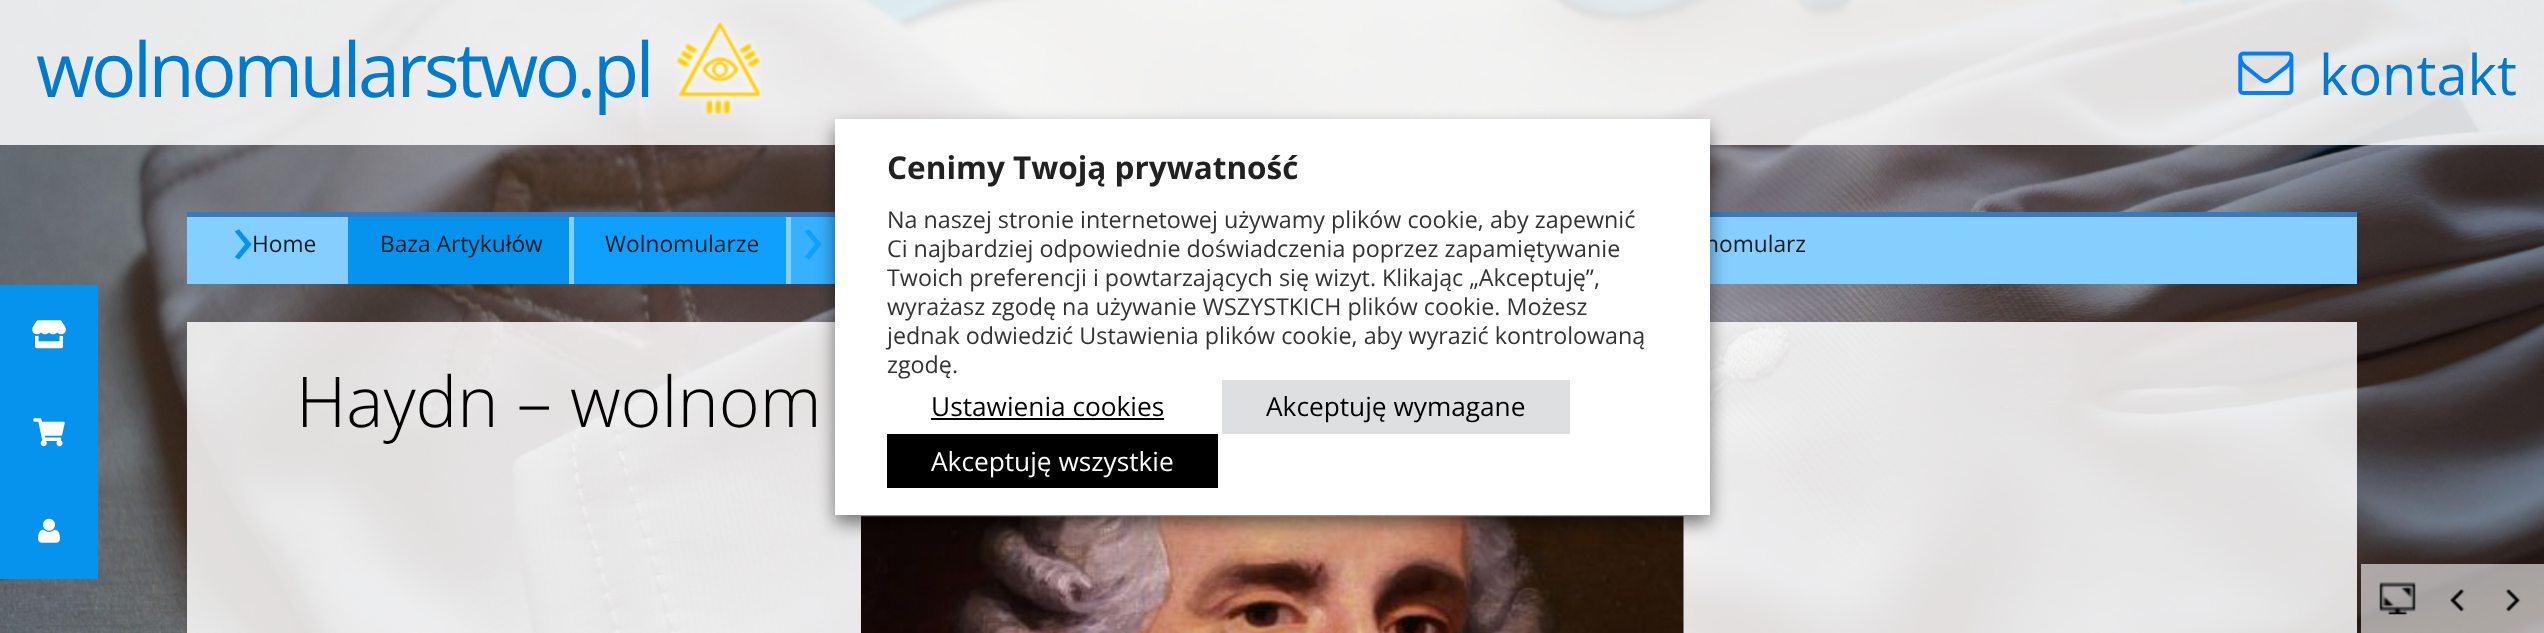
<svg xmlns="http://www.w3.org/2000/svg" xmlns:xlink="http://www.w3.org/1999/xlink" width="2544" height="633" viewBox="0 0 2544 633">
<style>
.cls-1{font:75.5px Open Sans;letter-spacing:-3.5px;fill:#007acc}
.cls-2{font:56px Open Sans;fill:#007acc}
.cls-3{font:74px Open Sans;fill:#0693ee}
.cls-4{font:22.75px Open Sans;fill:#1a1a1a}
.cls-5{font:74px Open Sans;fill:#0f9ffd}
.cls-6{font:26.25px Open Sans;fill:#ffffff}
.cls-7{font:26.25px Open Sans;fill:#000000}
.cls-8{font:23.3px Open Sans;fill:#333333}
.cls-9{font:bold 31.5px Open Sans;fill:#212121}
.cls-10{font:300 70px Open Sans;fill:#000000}
</style>
<rect width="100%" height="100%" fill="#ffffff"/>
<image xlink:href="image0.png" x="0" y="0" width="2544" height="633"/>
<rect fill="#ffffff" fill-opacity="0.85" x="0" y="0" width="2544" height="145"/>
<image xlink:href="image1.png" x="675" y="19" width="86" height="97"/>
<image xlink:href="image2.png" x="2238" y="51" width="56" height="44"/>
<rect fill="#387abd" x="187" y="212" width="2170" height="5"/>
<rect fill="#84cfff" x="187" y="217" width="2170" height="67"/>
<rect fill="#36b0ff" x="791" y="217" width="44" height="67"/>
<rect fill="#ffffff" fill-opacity="0.85" x="187" y="322" width="2170" height="311"/>
<image xlink:href="image6.png" x="861" y="516" width="823" height="117"/>
<rect fill="#000000" fill-opacity="0.5" filter="blur(9px)" x="835" y="128" width="875" height="395"/>
<rect fill="#0693ee" x="0" y="285" width="98" height="294"/>
<image xlink:href="image3.png" x="32" y="320" width="34" height="29"/>
<image xlink:href="image4.png" x="33" y="418" width="32" height="29"/>
<image xlink:href="image5.png" x="38" y="518" width="22" height="25"/>
<rect fill="#0693ee" x="348" y="217" width="221" height="67"/>
<rect fill="#0f9ffd" x="574" y="217" width="212" height="67"/>
<rect fill="#ffffff" fill-opacity="0.6" x="2361" y="564" width="183" height="69"/>
<image xlink:href="image7.png" x="2379" y="582" width="37" height="33"/>
<image xlink:href="image8.png" x="2450" y="589" width="15" height="23"/>
<image xlink:href="image9.png" x="2506" y="589" width="15" height="23"/>
<text class="cls-1" x="36" y="97">wolnomularstwo.pl</text>
<text class="cls-2" x="2319" y="95">kontakt</text>
<text class="cls-3" x="232" y="264">›</text>
<text class="cls-4" x="252" y="252">Home</text>
<text class="cls-4" x="380" y="252">Baza Artykułów</text>
<text class="cls-4" x="605" y="252">Wolnomularze</text>
<text class="cls-5" x="802" y="264">›</text>
<text class="cls-4" x="1705" y="252">nomularz</text>
<rect fill="#ffffff" x="835" y="119" width="875" height="396"/>
<rect fill="#000000" x="887" y="434" width="331" height="54"/>
<text class="cls-6" x="931" y="471">Akceptuję wszystkie</text>
<rect fill="#dedfe0" x="1222" y="380" width="348" height="54"/>
<text class="cls-7" x="1266" y="416">Akceptuję wymagane</text>
<text class="cls-7" x="931" y="416">Ustawienia cookies</text>
<rect fill="#000000" x="931" y="418" width="233" height="2"/>
<text class="cls-8" x="887" y="373">zgodę.</text>
<text class="cls-8" x="887" y="344">jednak odwiedzić Ustawienia plików cookie, aby wyrazić kontrolowaną</text>
<text class="cls-8" x="887" y="315">wyrażasz zgodę na używanie WSZYSTKICH plików cookie. Możesz</text>
<text class="cls-8" x="887" y="286">Twoich preferencji i powtarzających się wizyt. Klikając „Akceptuję”,</text>
<text class="cls-8" x="887" y="257">Ci najbardziej odpowiednie doświadczenia poprzez zapamiętywanie</text>
<text class="cls-8" x="887" y="228">Na naszej stronie internetowej używamy plików cookie, aby zapewnić</text>
<text class="cls-9" x="887" y="179">Cenimy Twoją prywatność</text>
<text class="cls-10" x="296" y="427">Haydn – wolnom</text>
</svg>
